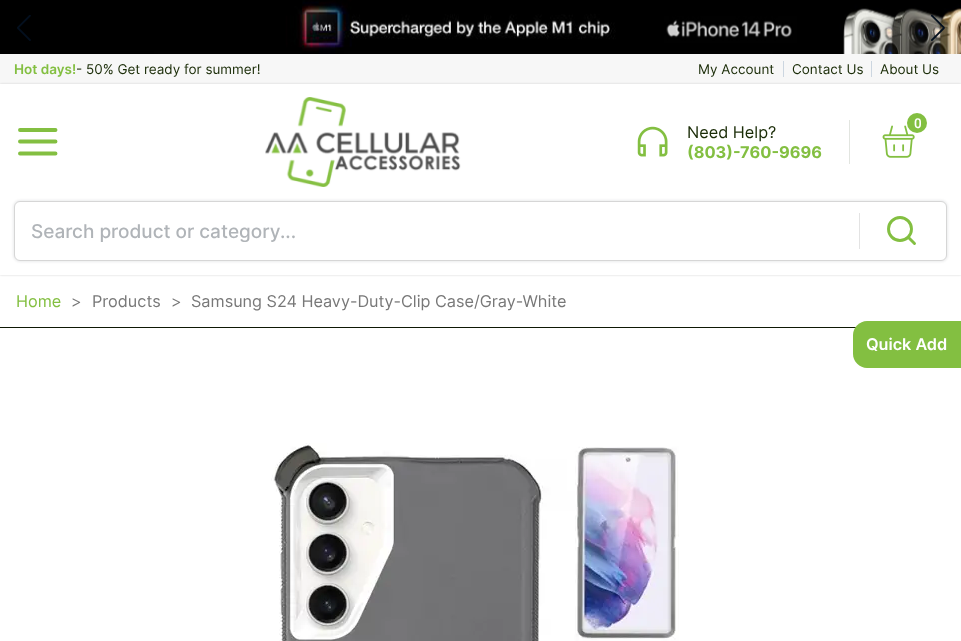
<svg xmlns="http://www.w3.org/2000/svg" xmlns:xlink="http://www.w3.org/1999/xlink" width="961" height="641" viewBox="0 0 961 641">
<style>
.cls-1{font:600 13.5px Inter;fill:#83bf41}
.cls-2{font:13.5px Inter;fill:#1a2c07}
.cls-3{font:16.25px Inter;fill:#1a2c07}
.cls-4{font:bold 16.25px Inter;fill:#83bf41}
.cls-5{font:500 13.5px Roboto;fill:#ffffff}
.cls-6{font:500 19px Inter;fill:#b0b4b8}
.cls-7{font:16.25px Inter;fill:#83bf41}
.cls-8{font:16.25px Inter;fill:#787878}
.cls-9{font:600 16.25px Inter;fill:#ffffff}
</style>
<defs>
<clipPath id="clip1"><path d="M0 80H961V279H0ZM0 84H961V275H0Z" clip-rule="evenodd"/></clipPath>
</defs>
<rect width="100%" height="100%" fill="#ffffff"/>
<image xlink:href="image0.png" x="0" y="0" width="961" height="54"/>
<image xlink:href="image1.png" x="17" y="15" width="14" height="26"/>
<image xlink:href="image2.png" x="931" y="14" width="14" height="27"/>
<rect fill="#f7f7f7" x="0" y="54" width="961" height="30"/>
<rect fill="#ccd6e0" x="783" y="61" width="1" height="16"/>
<rect fill="#ccd6e0" x="871" y="61" width="1" height="16"/>
<g clip-path="url(#clip1)">
<rect fill="#d1d1d1" filter="blur(1px)" x="0" y="84" width="961" height="191"/>
</g>
<path fill="none" stroke="#83bf41" stroke-width="3.9" stroke-linecap="round" stroke-linejoin="round" d="M20 141.5H55.5M20 130H55.5M20 153.5H55.5"/>
<image xlink:href="image3.png" x="265" y="97" width="196" height="90"/>
<image xlink:href="image4.png" x="637" y="126" width="31" height="31"/>
<rect fill="#e2e5e0" x="849" y="120" width="1" height="44"/>
<image xlink:href="image5.png" x="882" y="125" width="33" height="33"/>
<circle fill="#83bf41" cx="917" cy="123" r="10"/>
<rect fill="#030f1e" fill-opacity="0.08" filter="blur(1px)" x="13" y="200" width="935" height="62" rx="7"/>
<rect fill="#ffffff" stroke="#d6d6d6" x="14.5" y="201.5" width="932" height="59" rx="5.5"/>
<rect fill="#e3e3e3" x="859" y="213" width="1" height="36"/>
<circle fill="none" stroke="#83bf41" stroke-width="2.9" cx="900" cy="229" r="11.5"/>
<path fill="none" stroke="#83bf41" stroke-width="2.9" stroke-linecap="round" stroke-linejoin="round" d="M914.5 243.5L908.5 237.5"/>
<rect fill="#0e1804" x="0" y="327" width="856" height="1"/>
<image xlink:href="image6.png" x="271" y="443" width="408" height="198"/>
<path fill="#83bf41" d="M867 321H961V368H867C859.5 368 853 361.5 853 354V335C853 327.5 859.5 321 867 321Z"/>
<text class="cls-1" x="14" y="74">Hot days!</text>
<text class="cls-2" x="76" y="74">- 50% Get ready for summer!</text>
<text class="cls-2" x="698" y="74">My Account</text>
<text class="cls-2" x="792" y="74">Contact Us</text>
<text class="cls-2" x="880" y="74">About Us</text>
<text class="cls-3" x="687" y="138">Need Help?</text>
<text class="cls-4" x="687" y="158">(803)-760-9696</text>
<text class="cls-5" x="914" y="128">0</text>
<text class="cls-6" x="31" y="238">Search product or category...</text>
<text class="cls-7" x="16" y="307">Home</text>
<text class="cls-8" x="71" y="307">&gt;</text>
<text class="cls-8" x="92" y="307">Products</text>
<text class="cls-8" x="171" y="307">&gt;</text>
<text class="cls-8" x="191" y="307">Samsung S24 Heavy-Duty-Clip Case/Gray-White</text>
<text class="cls-9" x="866" y="350">Quick Add</text>
</svg>
